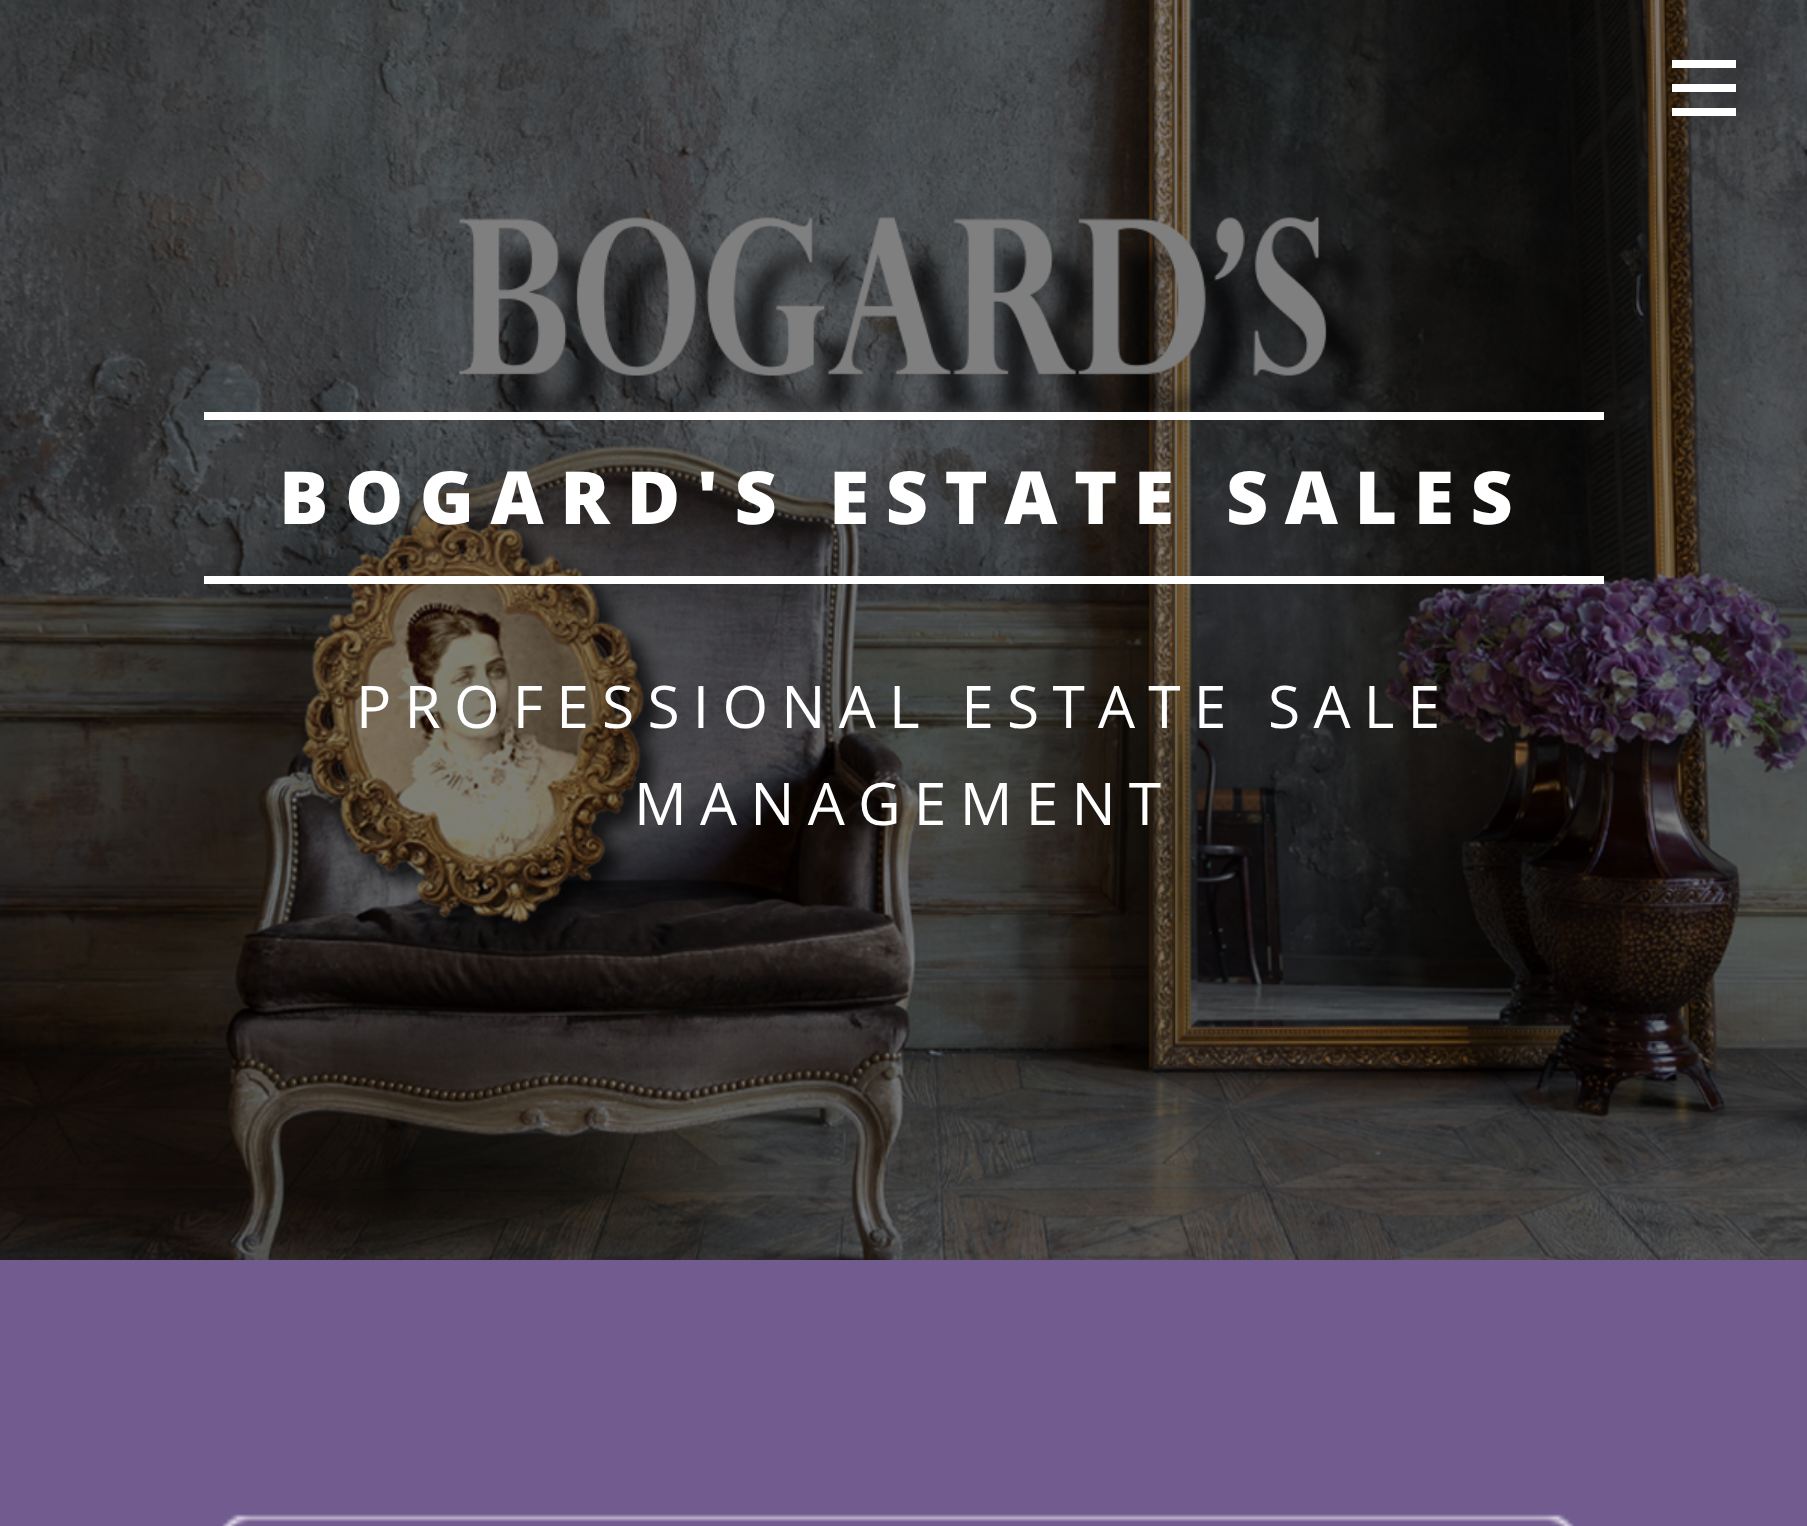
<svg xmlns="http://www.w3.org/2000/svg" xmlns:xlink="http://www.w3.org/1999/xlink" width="1807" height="1526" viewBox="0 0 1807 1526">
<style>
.cls-1{font:800 73.3px Open Sans;letter-spacing:16.5px;fill:#ffffff}
.cls-2{font:58.7px Open Sans;letter-spacing:13.2px;fill:#ffffff}
</style>
<rect width="100%" height="100%" fill="#715b8f"/>
<image xlink:href="image0.png" x="0" y="0" width="1807" height="1260"/>
<rect fill="#ffffff" x="1672" y="60" width="64" height="8"/>
<rect fill="#ffffff" x="1672" y="84" width="64" height="8"/>
<rect fill="#ffffff" x="1672" y="108" width="64" height="8"/>
<rect fill="#ffffff" x="204" y="412" width="1400" height="8"/>
<rect fill="#ffffff" x="204" y="576" width="1400" height="8"/>
<image xlink:href="image1.png" x="222" y="1514" width="1352" height="12"/>
<text class="cls-1" x="279" y="524">BOGARD'S ESTATE SALES</text>
<text class="cls-2" x="356" y="728">PROFESSIONAL ESTATE SALE</text>
<text class="cls-2" x="634" y="825">MANAGEMENT</text>
</svg>
